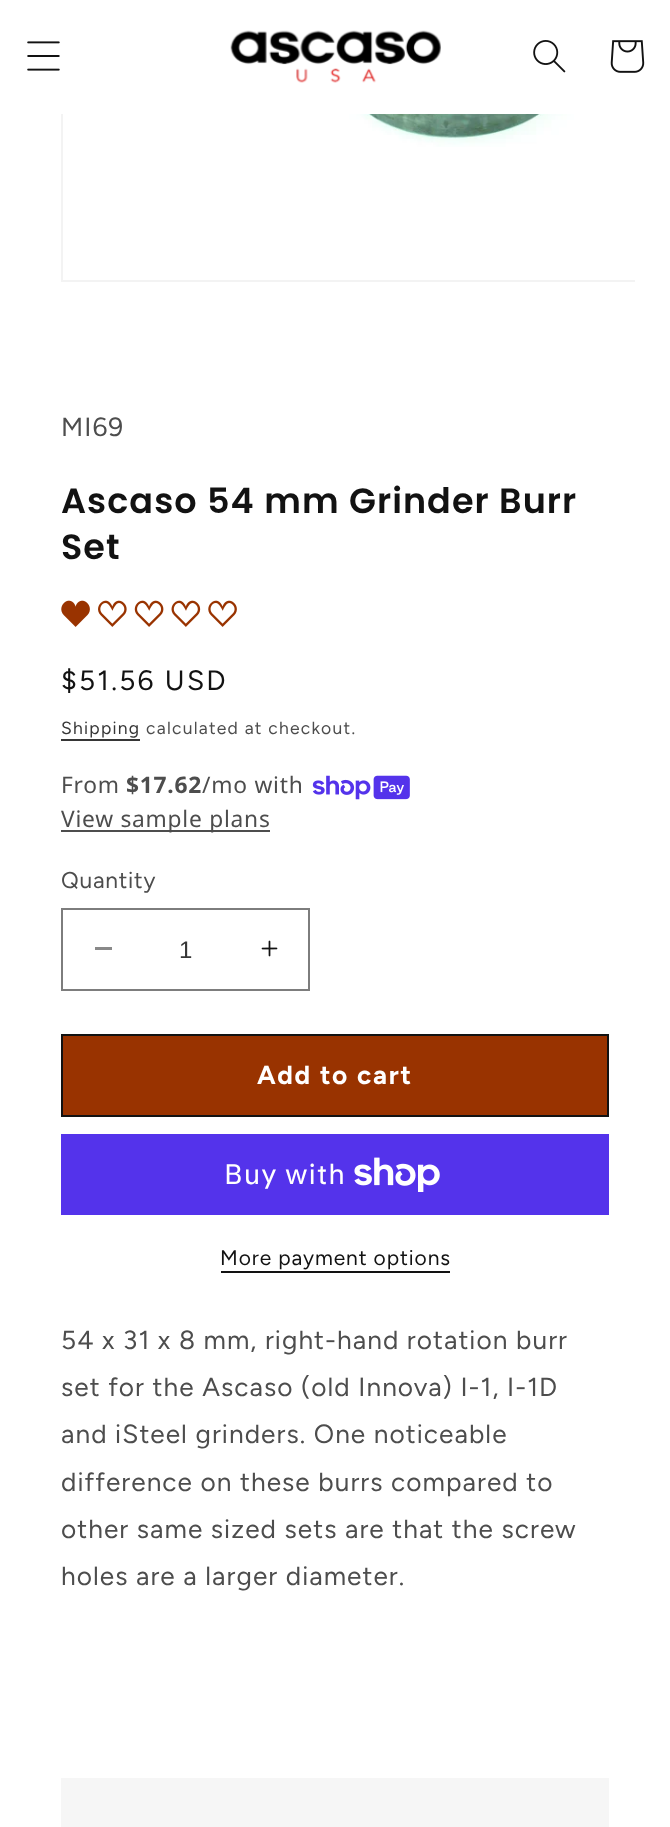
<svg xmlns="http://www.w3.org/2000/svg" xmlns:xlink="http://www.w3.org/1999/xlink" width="670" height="1827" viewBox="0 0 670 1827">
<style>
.cls-1{font:26.25px Figtree;letter-spacing:1.05px;fill:#4d4d4d}
.cls-2{font:600 35px Poppins;letter-spacing:1.05px;fill:#121212}
.cls-3{font:28px Figtree;letter-spacing:2.25px;fill:#121212}
.cls-4{font:17.5px Figtree;letter-spacing:1.25px;fill:#363636}
.cls-5{font:17.5px Figtree;letter-spacing:1.25px;fill:#4d4d4d}
.cls-6{font:22.75px Noto Sans;letter-spacing:0.75px;fill:#4d4d4d}
.cls-7{font:bold 22.75px Noto Sans;letter-spacing:0.75px;fill:#4d4d4d}
.cls-8{font:22.75px Figtree;letter-spacing:0.75px;fill:#4d4d4d}
.cls-9{font:24px Liberation Sans;fill:#363636}
.cls-10{font:bold 26.25px Figtree;letter-spacing:1.75px;fill:#ffffff}
.cls-11{font:28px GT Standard;letter-spacing:1.05px;fill:#ffffff}
.cls-12{font:21px Figtree;letter-spacing:0.9px;fill:#121212}
</style>
<defs>
<clipPath id="clip1"><rect x="0" y="0" width="635" height="291"/></clipPath>
</defs>
<rect width="100%" height="100%" fill="#ffffff"/>
<g clip-path="url(#clip1)">
<rect fill="none" stroke="#f3f3f3" stroke-width="2" x="62" y="-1" width="574" height="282"/>
</g>
<rect fill="#ffffff" x="61" y="0" width="2" height="114"/>
<image xlink:href="image0.png" x="27" y="41" width="33" height="30"/>
<image xlink:href="image1.png" x="230" y="30" width="211" height="53"/>
<image xlink:href="image2.png" x="533" y="40" width="33" height="33"/>
<image xlink:href="image3.png" x="610" y="40" width="35" height="33"/>
<image xlink:href="image4.png" x="343" y="114" width="231" height="33"/>
<image xlink:href="image5.png" x="61" y="600" width="29" height="27"/>
<image xlink:href="image6.png" x="98" y="600" width="29" height="27"/>
<image xlink:href="image7.png" x="134" y="600" width="30" height="27"/>
<image xlink:href="image8.png" x="171" y="600" width="30" height="27"/>
<image xlink:href="image9.png" x="208" y="600" width="29" height="27"/>
<rect fill="#363636" x="61" y="739" width="79" height="2"/>
<image xlink:href="image10.png" x="312" y="775" width="98" height="25"/>
<rect fill="#4d4d4d" x="61" y="830" width="209" height="2"/>
<rect fill="#898989" x="95" y="947" width="17" height="3"/>
<image xlink:href="image11.png" x="261" y="940" width="17" height="17"/>
<rect fill="none" stroke="#7d7d7d" stroke-width="2" x="62" y="909" width="247" height="81"/>
<rect fill="#993300" x="63" y="1036" width="544" height="79"/>
<rect fill="none" stroke="#121212" stroke-width="2" x="62" y="1035" width="546" height="81"/>
<rect fill="#5433eb" x="61" y="1134" width="548" height="81"/>
<image xlink:href="image12.png" x="354" y="1157" width="86" height="35"/>
<rect fill="#121212" x="221" y="1271" width="229" height="2"/>
<rect fill="#f6f6f6" x="61" y="1778" width="548" height="49"/>
<text class="cls-1" x="61" y="436">MI69</text>
<text class="cls-2"><tspan x="61" y="513">Ascaso 54 mm Grinder Burr</tspan><tspan x="61" y="559">Set</tspan></text>
<text class="cls-3" x="61" y="690">$51.56 USD</text>
<text class="cls-4" x="61" y="734">Shipping</text>
<text class="cls-5" x="146" y="734">calculated at checkout.</text>
<text class="cls-6" x="61" y="793">From</text>
<text class="cls-7" x="126" y="793">$17.62</text>
<text class="cls-6" x="202" y="793">/mo with</text>
<text class="cls-6" x="61" y="827">View sample plans</text>
<text class="cls-8" x="61" y="888">Quantity</text>
<text class="cls-9" x="179" y="958">1</text>
<text class="cls-10" x="257" y="1084">Add to cart</text>
<text class="cls-11" x="224" y="1184">Buy with</text>
<text class="cls-12" x="220" y="1265">More payment options</text>
<text class="cls-1"><tspan x="61" y="1349">54 x 31 x 8 mm, right-hand rotation burr</tspan><tspan x="61" y="1396">set for the Ascaso (old Innova) I-1, I-1D</tspan><tspan x="61" y="1443">and iSteel grinders. One noticeable</tspan><tspan x="61" y="1491">difference on these burrs compared to</tspan><tspan x="61" y="1538">other same sized sets are that the screw</tspan><tspan x="61" y="1585">holes are a larger diameter.</tspan></text>
</svg>
